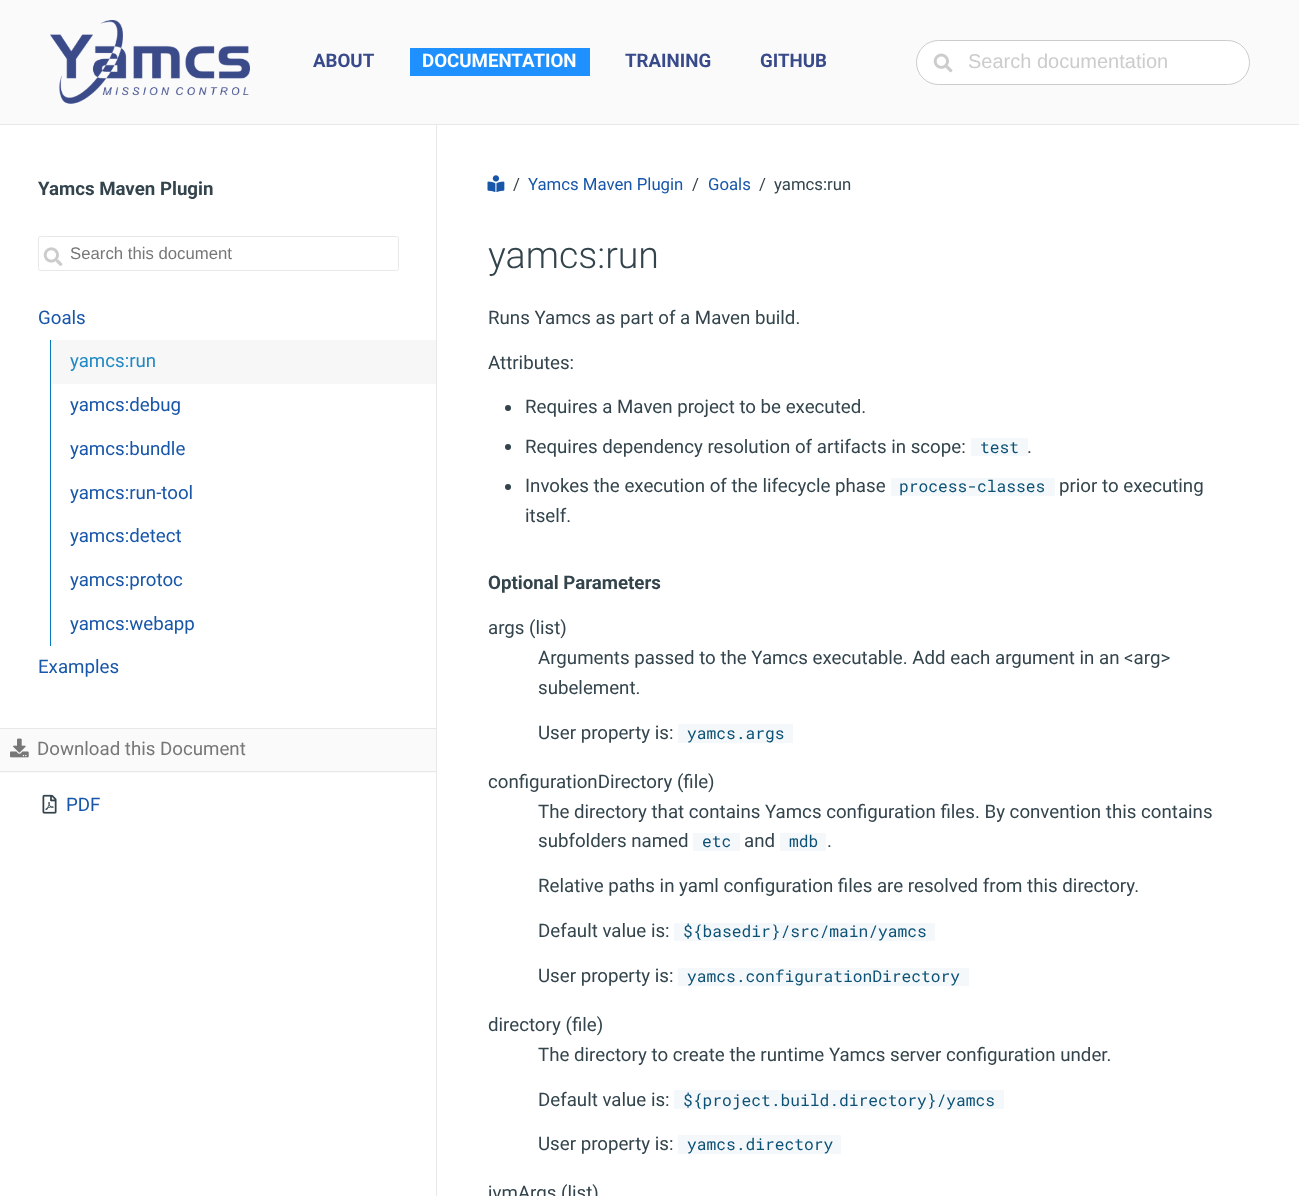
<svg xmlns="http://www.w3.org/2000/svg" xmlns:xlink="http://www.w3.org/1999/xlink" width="1299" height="1196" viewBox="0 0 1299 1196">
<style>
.cls-1{font:bold 18.7px Roboto;fill:#384a89}
.cls-2{font:bold 18.7px Roboto;fill:#ffffff}
.cls-3{font:20px Liberation Sans;fill:#cccccc}
.cls-4{font:bold 18.7px Roboto;fill:#33444c}
.cls-5{font:16.75px Liberation Sans;fill:#777777}
.cls-6{font:18.7px Roboto;fill:#1756a9}
.cls-7{font:18.7px Roboto;fill:#2089c4}
.cls-8{font:18.7px Roboto;fill:#777777}
.cls-9{font:16.75px Roboto;fill:#33444c}
.cls-10{font:16.75px Roboto;fill:#1756a9}
.cls-11{font:300 37.5px Roboto;fill:#33444c}
.cls-12{font:18.7px Roboto;fill:#33444c}
.cls-13{font:16.25px Roboto Mono;fill:#0c5176}
</style>
<rect width="100%" height="100%" fill="#ffffff"/>
<rect fill="#fafafb" x="0" y="0" width="1299" height="124"/>
<rect fill="#e8e8e8" x="0" y="124" width="1299" height="1"/>
<image xlink:href="image0.png" x="50" y="20" width="200" height="84"/>
<rect fill="#1e90ff" x="410" y="48" width="180" height="28"/>
<rect fill="#ffffff" stroke="#cccccc" x="916.5" y="40.5" width="333" height="44" rx="22"/>
<image xlink:href="image1.png" x="933" y="53" width="20" height="20"/>
<rect fill="#e8e8e8" x="436" y="125" width="1" height="1071"/>
<rect fill="none" stroke="#e8e8e8" x="38.5" y="236.5" width="360" height="34" rx="2"/>
<image xlink:href="image2.png" x="43" y="247" width="20" height="19"/>
<rect fill="#f7f7f7" x="51" y="340" width="385" height="44"/>
<rect fill="#077cbc" x="50" y="340" width="1" height="306"/>
<rect fill="#fafafb" x="0" y="729" width="436" height="44"/>
<rect fill="#e8e8e8" x="0" y="728" width="436" height="1"/>
<rect fill="#e8e8e8" x="0" y="771" width="436" height="1"/>
<image xlink:href="image3.png" x="10" y="738" width="19" height="20"/>
<image xlink:href="image4.png" x="42" y="794" width="15" height="20"/>
<image xlink:href="image5.png" x="487" y="175" width="18" height="18"/>
<circle fill="#33444c" cx="508" cy="408" r="3"/>
<circle fill="#33444c" cx="508" cy="447" r="3"/>
<rect fill="#f5f8fa" x="971" y="438" width="57" height="18"/>
<circle fill="#33444c" cx="508" cy="487" r="3"/>
<rect fill="#f5f8fa" x="891" y="478" width="164" height="18"/>
<rect fill="#f5f8fa" x="678" y="724" width="115" height="19"/>
<rect fill="#f5f8fa" x="693" y="833" width="47" height="18"/>
<rect fill="#f5f8fa" x="780" y="833" width="46" height="18"/>
<rect fill="#f5f8fa" x="674" y="923" width="261" height="18"/>
<rect fill="#f5f8fa" x="678" y="968" width="291" height="18"/>
<rect fill="#f5f8fa" x="674" y="1090" width="330" height="19"/>
<rect fill="#f5f8fa" x="678" y="1135" width="163" height="19"/>
<text class="cls-1" x="313" y="67">ABOUT</text>
<text class="cls-2" x="422" y="67">DOCUMENTATION</text>
<text class="cls-1" x="625" y="67">TRAINING</text>
<text class="cls-1" x="760" y="67">GITHUB</text>
<text class="cls-3" x="968" y="68">Search documentation</text>
<text class="cls-4" x="38" y="195">Yamcs Maven Plugin</text>
<text class="cls-5" x="70" y="259">Search this document</text>
<text class="cls-6" x="38" y="324">Goals</text>
<text class="cls-7" x="70" y="367">yamcs:run</text>
<text class="cls-6" x="70" y="411">yamcs:debug</text>
<text class="cls-6" x="70" y="455">yamcs:bundle</text>
<text class="cls-6" x="70" y="499">yamcs:run-tool</text>
<text class="cls-6" x="70" y="542">yamcs:detect</text>
<text class="cls-6" x="70" y="586">yamcs:protoc</text>
<text class="cls-6" x="70" y="630">yamcs:webapp</text>
<text class="cls-6" x="38" y="673">Examples</text>
<text class="cls-8" x="37" y="755">Download this Document</text>
<text class="cls-6" x="66" y="811">PDF</text>
<text class="cls-9" x="513" y="190">/</text>
<text class="cls-10" x="528" y="190">Yamcs Maven Plugin</text>
<text class="cls-9" x="692" y="190">/</text>
<text class="cls-10" x="708" y="190">Goals</text>
<text class="cls-9" x="759" y="190">/</text>
<text class="cls-9" x="774" y="190">yamcs:run</text>
<text class="cls-11" x="488" y="268">yamcs:run</text>
<text class="cls-12" x="488" y="324">Runs Yamcs as part of a Maven build.</text>
<text class="cls-12" x="488" y="369">Attributes:</text>
<text class="cls-12" x="525" y="413">Requires a Maven project to be executed.</text>
<text class="cls-12" x="525" y="453">Requires dependency resolution of artifacts in scope:</text>
<text class="cls-13" x="980" y="453">test</text>
<text class="cls-12" x="1027" y="453">.</text>
<text class="cls-12" x="525" y="492">Invokes the execution of the lifecycle phase</text>
<text class="cls-13" x="899" y="492">process-classes</text>
<text class="cls-12" x="1059" y="492">prior to executing</text>
<text class="cls-12" x="525" y="522">itself.</text>
<text class="cls-4" x="488" y="589">Optional Parameters</text>
<text class="cls-12" x="488" y="634">args (list)</text>
<text class="cls-12"><tspan x="538" y="664">Arguments passed to the Yamcs executable. Add each argument in an &lt;arg&gt;</tspan><tspan x="538" y="694">subelement.</tspan></text>
<text class="cls-12" x="538" y="739">User property is:</text>
<text class="cls-13" x="687" y="739">yamcs.args</text>
<text class="cls-12" x="488" y="788">configurationDirectory (file)</text>
<text class="cls-12"><tspan x="538" y="818">The directory that contains Yamcs configuration files. By convention this contains</tspan><tspan x="538" y="847">subfolders named</tspan></text>
<text class="cls-13" x="702" y="847">etc</text>
<text class="cls-12" x="744" y="847">and</text>
<text class="cls-13" x="789" y="847">mdb</text>
<text class="cls-12" x="827" y="847">.</text>
<text class="cls-12" x="538" y="892">Relative paths in yaml configuration files are resolved from this directory.</text>
<text class="cls-12" x="538" y="937">Default value is:</text>
<text class="cls-13" x="683" y="937">${basedir}/src/main/yamcs</text>
<text class="cls-12" x="538" y="982">User property is:</text>
<text class="cls-13" x="687" y="982">yamcs.configurationDirectory</text>
<text class="cls-12" x="488" y="1031">directory (file)</text>
<text class="cls-12" x="538" y="1061">The directory to create the runtime Yamcs server configuration under.</text>
<text class="cls-12" x="538" y="1106">Default value is:</text>
<text class="cls-13" x="683" y="1106">${project.build.directory}/yamcs</text>
<text class="cls-12" x="538" y="1150">User property is:</text>
<text class="cls-13" x="687" y="1150">yamcs.directory</text>
<text class="cls-12" x="488" y="1199">jvmArgs (list)</text>
</svg>
